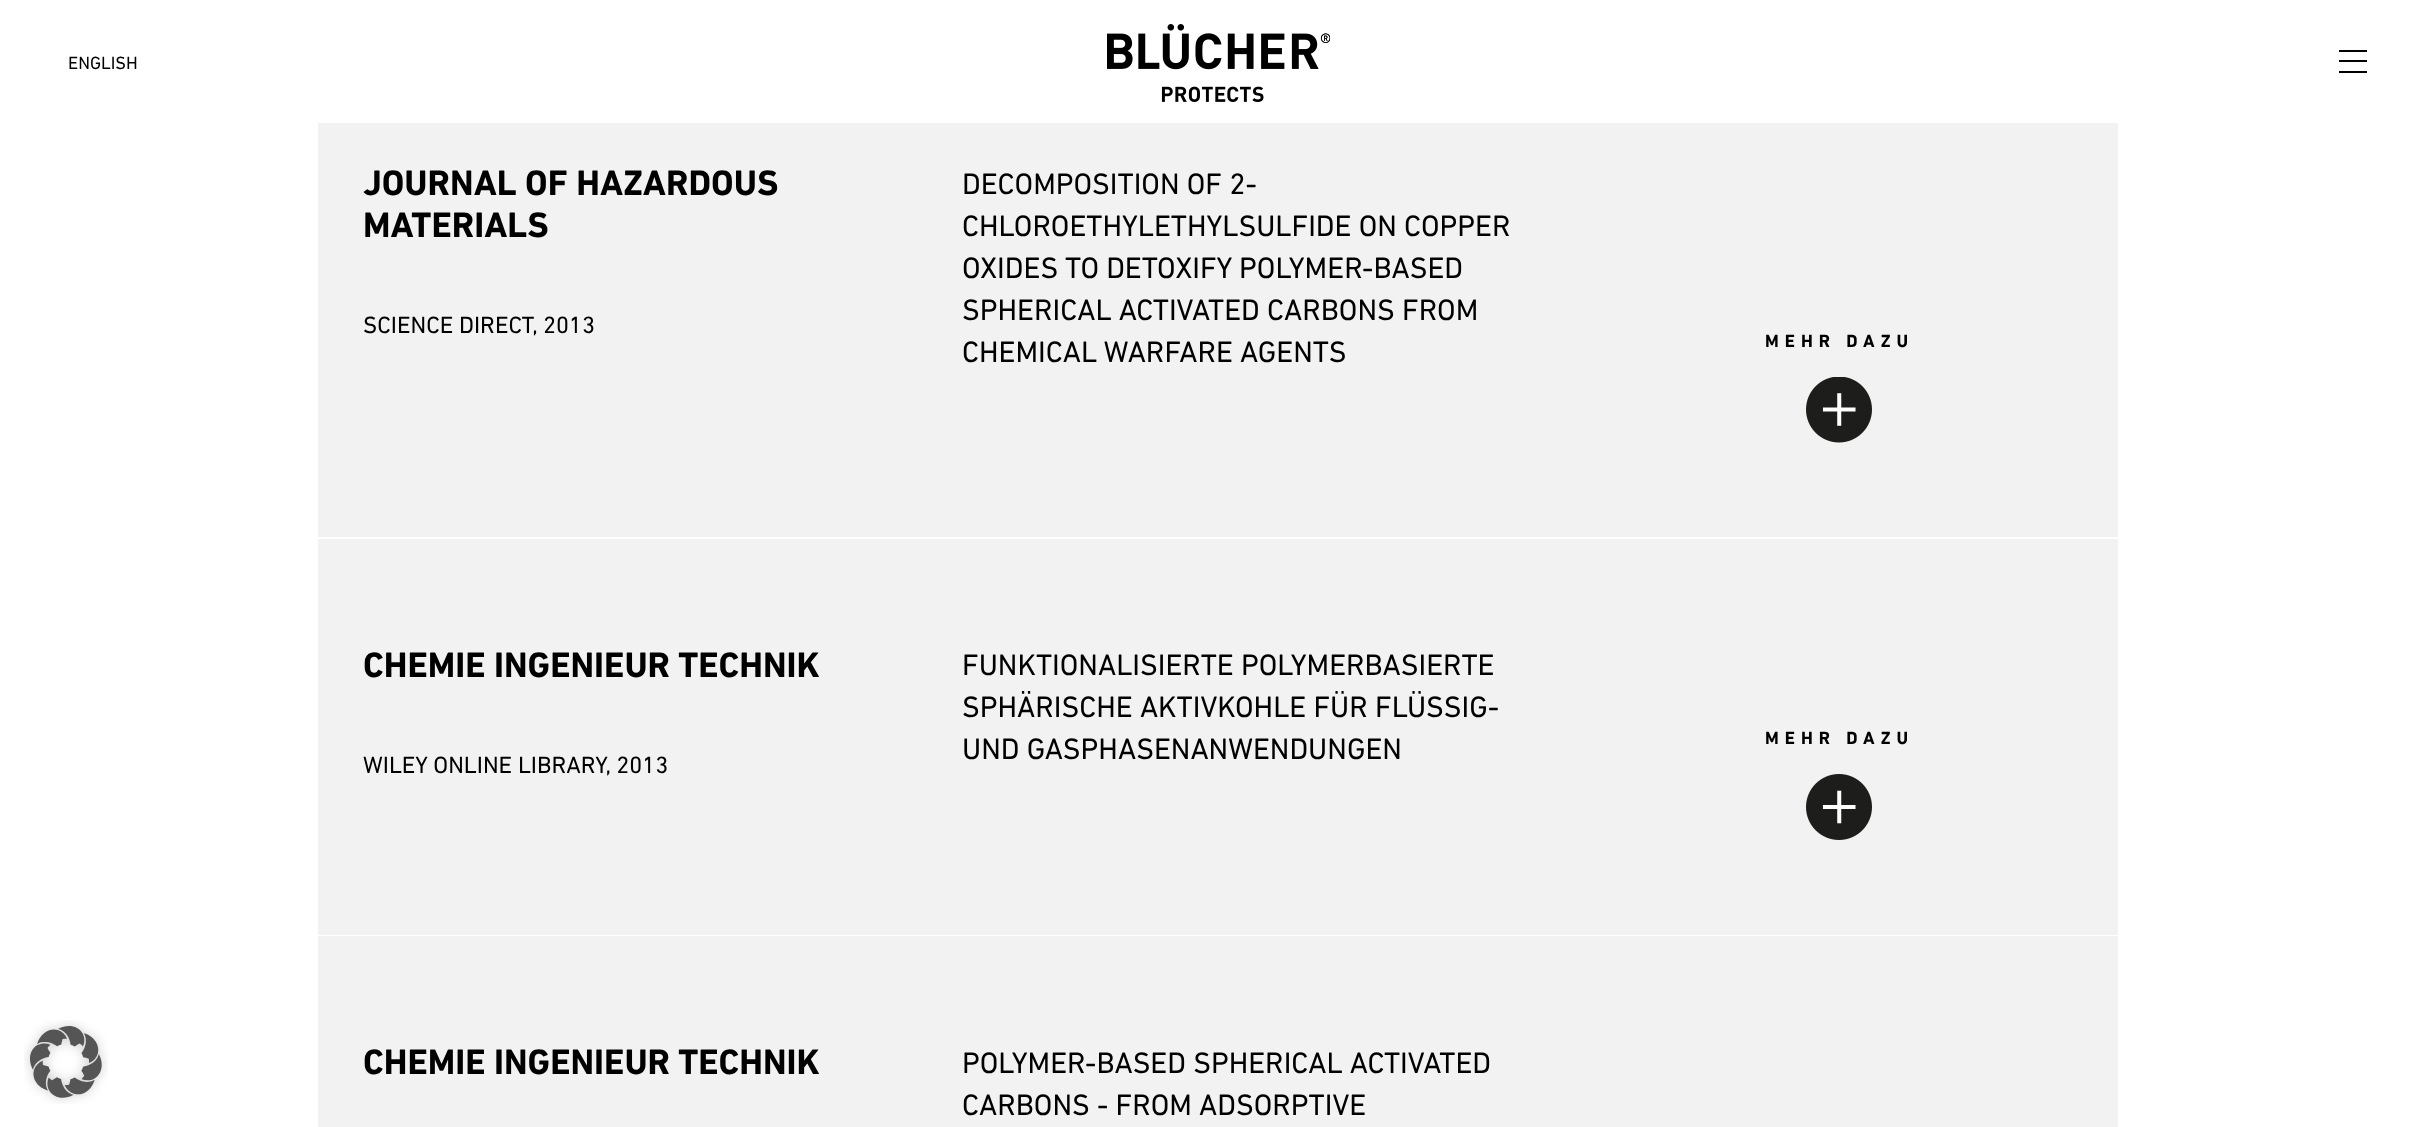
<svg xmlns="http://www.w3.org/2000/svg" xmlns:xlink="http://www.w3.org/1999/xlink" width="2435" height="1127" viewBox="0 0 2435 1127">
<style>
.cls-1{font:18px Din;fill:#000000}
.cls-2{font:bold 36px Din;fill:#000000}
.cls-3{font:24px Din;fill:#000000}
.cls-4{font:30px Din;fill:#000000}
.cls-5{font:bold 18px Din;letter-spacing:6px;fill:#000000}
</style>
<rect width="100%" height="100%" fill="#ffffff"/>
<image xlink:href="image0.png" x="1107" y="24" width="223" height="78"/>
<rect fill="#000000" x="2339" y="50" width="28" height="2"/>
<rect fill="#000000" x="2339" y="60" width="28" height="2"/>
<rect fill="#000000" x="2339" y="71" width="28" height="2"/>
<image xlink:href="image1.png" x="24" y="1020" width="84" height="84"/>
<rect fill="#f1f2f1" x="318" y="123" width="1800" height="414"/>
<image xlink:href="image2.png" x="1806" y="377" width="66" height="66"/>
<rect fill="#f1f2f1" x="318" y="539" width="1800" height="396"/>
<image xlink:href="image3.png" x="1806" y="774" width="66" height="66"/>
<rect fill="#f1f2f1" x="318" y="936" width="1800" height="191"/>
<text class="cls-1" x="68" y="69">ENGLISH</text>
<text class="cls-2"><tspan x="363" y="195">JOURNAL OF HAZARDOUS</tspan><tspan x="363" y="237">MATERIALS</tspan></text>
<text class="cls-3" x="363" y="333">SCIENCE DIRECT, 2013</text>
<text class="cls-4"><tspan x="962" y="194">DECOMPOSITION OF 2-</tspan><tspan x="962" y="236">CHLOROETHYLETHYLSULFIDE ON COPPER</tspan><tspan x="962" y="278">OXIDES TO DETOXIFY POLYMER-BASED</tspan><tspan x="962" y="320">SPHERICAL ACTIVATED CARBONS FROM</tspan><tspan x="962" y="362">CHEMICAL WARFARE AGENTS</tspan></text>
<text class="cls-5" x="1765" y="347">MEHR DAZU</text>
<text class="cls-2" x="363" y="677">CHEMIE INGENIEUR TECHNIK</text>
<text class="cls-3" x="363" y="773">WILEY ONLINE LIBRARY, 2013</text>
<text class="cls-4"><tspan x="962" y="675">FUNKTIONALISIERTE POLYMERBASIERTE</tspan><tspan x="962" y="717">SPHÄRISCHE AKTIVKOHLE FÜR FLÜSSIG-</tspan><tspan x="962" y="759">UND GASPHASENANWENDUNGEN</tspan></text>
<text class="cls-5" x="1765" y="744">MEHR DAZU</text>
<text class="cls-2" x="363" y="1074">CHEMIE INGENIEUR TECHNIK</text>
<text class="cls-4"><tspan x="962" y="1073">POLYMER-BASED SPHERICAL ACTIVATED</tspan><tspan x="962" y="1115">CARBONS - FROM ADSORPTIVE</tspan></text>
</svg>
